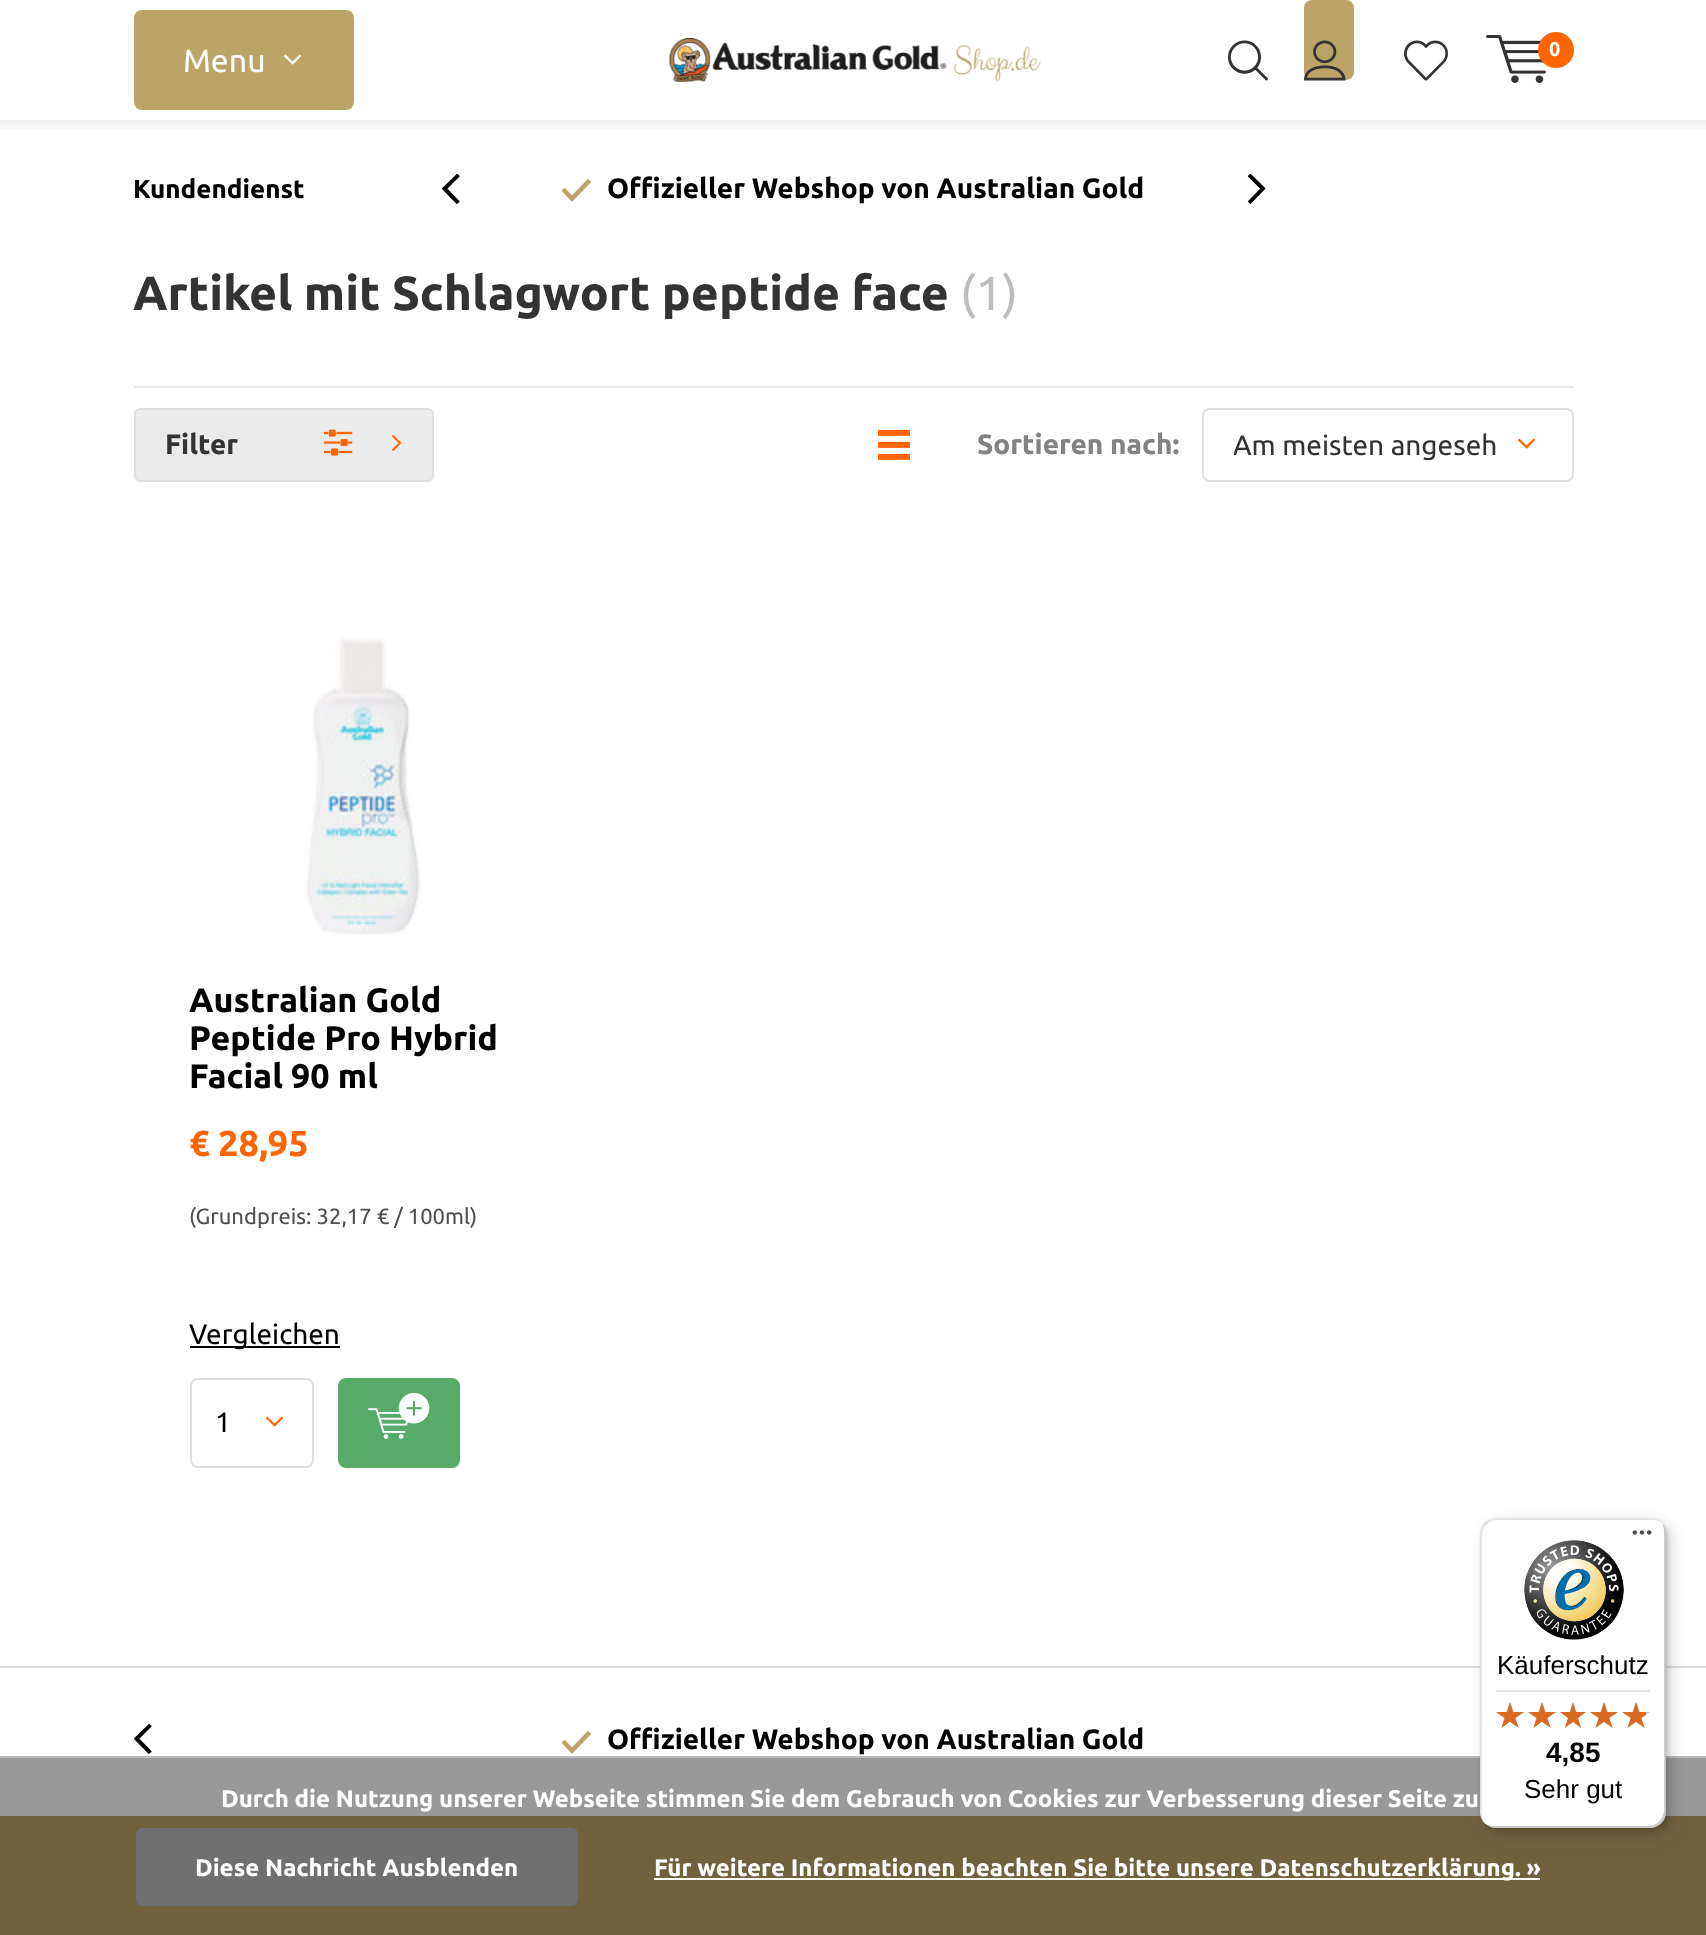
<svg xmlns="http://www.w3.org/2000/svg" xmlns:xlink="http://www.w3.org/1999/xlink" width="1706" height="1935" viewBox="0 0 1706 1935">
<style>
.cls-1{font:32px Ubuntu;fill:#ffffff}
.cls-2{font:bold 20px Ubuntu;fill:#ffffff}
.cls-3{font:bold 26px Ubuntu;fill:#000000}
.cls-4{font:bold 28px Ubuntu;fill:#000000}
.cls-5{font:bold 48px Ubuntu;fill:#333333}
.cls-6{font:48px Ubuntu;fill:#bdbdbd}
.cls-7{font:bold 28px Ubuntu;fill:#333333}
.cls-8{font:bold 28px Ubuntu;fill:#828282}
.cls-9{font:28px Ubuntu;fill:#333333}
.cls-10{font:bold 34px Ubuntu;fill:#000000}
.cls-11{font:bold 36px Ubuntu;fill:#ff6602}
.cls-12{font:22px Ubuntu;fill:#4f4f4f}
.cls-13{font:28px Ubuntu;fill:#000000}
.cls-14{font:bold 24px Ubuntu;fill:#ffffff}
.cls-15{font:26px Liberation Sans;fill:#000000}
.cls-16{font:bold 28px Liberation Sans;fill:#000000}
</style>
<defs>
<clipPath id="clip1"><rect x="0" y="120" width="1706" height="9"/></clipPath>
<clipPath id="clip2"><rect x="1234" y="428" width="268" height="32"/></clipPath>
</defs>
<rect width="100%" height="100%" fill="#ffffff"/>
<rect fill="#999999" x="0" y="1758" width="1706" height="58"/>
<g clip-path="url(#clip1)">
<rect fill="#000000" fill-opacity="0.05" filter="blur(4px)" x="-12" y="8" width="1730" height="120"/>
</g>
<image xlink:href="image0.png" x="669" y="38" width="372" height="44"/>
<rect fill="#bca468" x="134" y="10" width="220" height="100" rx="8"/>
<image xlink:href="image1.png" x="284" y="54" width="18" height="11"/>
<image xlink:href="image2.png" x="1228" y="40" width="40" height="41"/>
<rect fill="#bca468" x="1304" y="0" width="50" height="80" rx="8"/>
<image xlink:href="image3.png" x="1304" y="40" width="42" height="41"/>
<image xlink:href="image4.png" x="1404" y="40" width="44" height="41"/>
<image xlink:href="image5.png" x="1486" y="35" width="60" height="48"/>
<circle fill="#ff6602" cx="1556" cy="50" r="18"/>
<image xlink:href="image6.png" x="442" y="173" width="18" height="31"/>
<image xlink:href="image7.png" x="1248" y="173" width="18" height="31"/>
<image xlink:href="image8.png" x="562" y="179" width="29" height="23"/>
<rect fill="#ebebeb" x="134" y="386" width="1440" height="2"/>
<rect fill="#ebebeb" stroke="#e0e0e0" stroke-width="2" x="135" y="409" width="298" height="72" rx="5"/>
<image xlink:href="image9.png" x="324" y="429" width="29" height="27"/>
<image xlink:href="image10.png" x="392" y="435" width="10" height="16"/>
<image xlink:href="image11.png" x="878" y="429" width="32" height="31"/>
<image xlink:href="image12.png" x="1518" y="438" width="18" height="11"/>
<rect fill="none" stroke="#e0e0e0" stroke-width="2" x="1203" y="409" width="370" height="72" rx="7"/>
<image xlink:href="image13.png" x="306" y="637" width="115" height="298"/>
<rect fill="#000000" x="190" y="1346" width="150" height="2"/>
<image xlink:href="image12.png" x="266" y="1416" width="18" height="11"/>
<rect fill="none" stroke="#e0e0e0" stroke-width="2" x="191" y="1379" width="122" height="88" rx="7"/>
<rect fill="#55ab67" stroke="#55ab67" stroke-width="2" x="339" y="1379" width="120" height="88" rx="7"/>
<image xlink:href="image14.png" x="368" y="1392" width="62" height="47"/>
<rect fill="#e0e0e0" x="0" y="1666" width="1706" height="2"/>
<image xlink:href="image6.png" x="134" y="1723" width="18" height="31"/>
<image xlink:href="image8.png" x="562" y="1731" width="29" height="23"/>
<rect fill="#71623e" x="0" y="1816" width="1706" height="119"/>
<rect fill="#bbbbbb" x="0" y="1756" width="1706" height="2"/>
<rect fill="#707070" x="136" y="1828" width="442" height="78" rx="6"/>
<rect fill="#ffffff" x="654" y="1878" width="886" height="2"/>
<rect fill="#000000" fill-opacity="0.15" filter="blur(8px)" x="1486" y="1524" width="186" height="310" rx="16"/>
<rect fill="#000000" fill-opacity="0.15" filter="blur(2px)" x="1482" y="1520" width="186" height="310" rx="16"/>
<rect fill="#ffffff" x="1480" y="1518" width="186" height="310" rx="16"/>
<path fill="#000000" fill-opacity="0.1" d="M1498 1520H1652C1656 1520 1659 1521 1662 1523C1659 1520 1655 1518 1650 1518H1496C1487 1518 1480 1525 1480 1534V1812C1480 1817 1482 1821 1485 1824C1483 1821 1482 1818 1482 1814V1536C1482 1527 1489 1520 1498 1520Z"/>
<path fill="#000000" fill-opacity="0.2" d="M1484 1823C1487 1826 1491 1828 1496 1828H1650C1659 1828 1666 1821 1666 1812V1534C1666 1529 1664 1525 1661 1522C1663 1525 1664 1528 1664 1532V1810C1664 1819 1657 1826 1648 1826H1494C1490 1826 1487 1825 1484 1823Z"/>
<path fill="#323232" fill-opacity="0.2" d="M1485 1823C1488 1826 1492 1828 1496 1828H1650C1659 1828 1666 1821 1666 1812V1534C1666 1530 1664 1526 1661 1523C1664 1526 1665 1529 1665 1533V1811C1665 1820 1658 1827 1649 1827H1495C1491 1827 1488 1826 1485 1823Z"/>
<path fill="#ffffff" fill-opacity="0.3" d="M1485 1823C1488 1826 1492 1828 1496 1828H1650C1659 1828 1666 1821 1666 1812V1534C1666 1530 1664 1526 1661 1523C1664 1526 1665 1529 1665 1533V1811C1665 1820 1658 1827 1649 1827H1495C1491 1827 1488 1826 1485 1823Z"/>
<image xlink:href="image15.png" x="1632" y="1530" width="20" height="5"/>
<image xlink:href="image16.png" x="1524" y="1540" width="100" height="100"/>
<rect fill="#e5e5e5" x="1496" y="1690" width="154" height="2"/>
<image xlink:href="image17.png" x="1496" y="1702" width="28" height="26"/>
<image xlink:href="image17.png" x="1528" y="1702" width="28" height="26"/>
<image xlink:href="image18.png" x="1560" y="1702" width="26" height="26"/>
<image xlink:href="image17.png" x="1590" y="1702" width="28" height="26"/>
<image xlink:href="image17.png" x="1622" y="1702" width="28" height="26"/>
<image xlink:href="image19.png" x="1496" y="1702" width="28" height="26"/>
<image xlink:href="image19.png" x="1528" y="1702" width="28" height="26"/>
<image xlink:href="image20.png" x="1560" y="1702" width="26" height="26"/>
<image xlink:href="image19.png" x="1590" y="1702" width="28" height="26"/>
<image xlink:href="image21.png" x="1622" y="1702" width="24" height="26"/>
<text class="cls-1" x="183" y="72">Menu</text>
<text class="cls-2" x="1549" y="56">0</text>
<text class="cls-3" x="133" y="198">Kundendienst</text>
<text class="cls-4" x="607" y="198">Offizieller Webshop von Australian Gold</text>
<text class="cls-5" x="133" y="310">Artikel mit Schlagwort peptide face</text>
<text class="cls-6" x="960" y="310">(1)</text>
<text class="cls-7" x="165" y="454">Filter</text>
<text class="cls-8" x="977" y="454">Sortieren nach:</text>
<g clip-path="url(#clip2)">
<text class="cls-9" x="1233" y="455">Am meisten angeseh</text>
</g>
<text class="cls-10"><tspan x="189" y="1012">Australian Gold</tspan><tspan x="189" y="1050">Peptide Pro Hybrid</tspan><tspan x="189" y="1088">Facial 90 ml</tspan></text>
<text class="cls-11" x="189" y="1156">€ 28,95</text>
<text class="cls-12" x="189" y="1224">(Grundpreis: 32,17 € / 100ml)</text>
<text class="cls-13" x="189" y="1344">Vergleichen</text>
<text class="cls-13" x="215" y="1432">1</text>
<text class="cls-4" x="607" y="1749">Offizieller Webshop von Australian Gold</text>
<text class="cls-14" x="221" y="1807">Durch die Nutzung unserer Webseite stimmen Sie dem Gebrauch von Cookies zur Verbesserung dieser Seite zu</text>
<text class="cls-14" x="195" y="1876">Diese Nachricht Ausblenden</text>
<text class="cls-14" x="654" y="1876">Für weitere Informationen beachten Sie bitte unsere Datenschutzerklärung. »</text>
<text class="cls-15" x="1497" y="1674">Käuferschutz</text>
<text class="cls-16" x="1546" y="1762">4,85</text>
<text class="cls-15" x="1524" y="1798">Sehr gut</text>
</svg>
